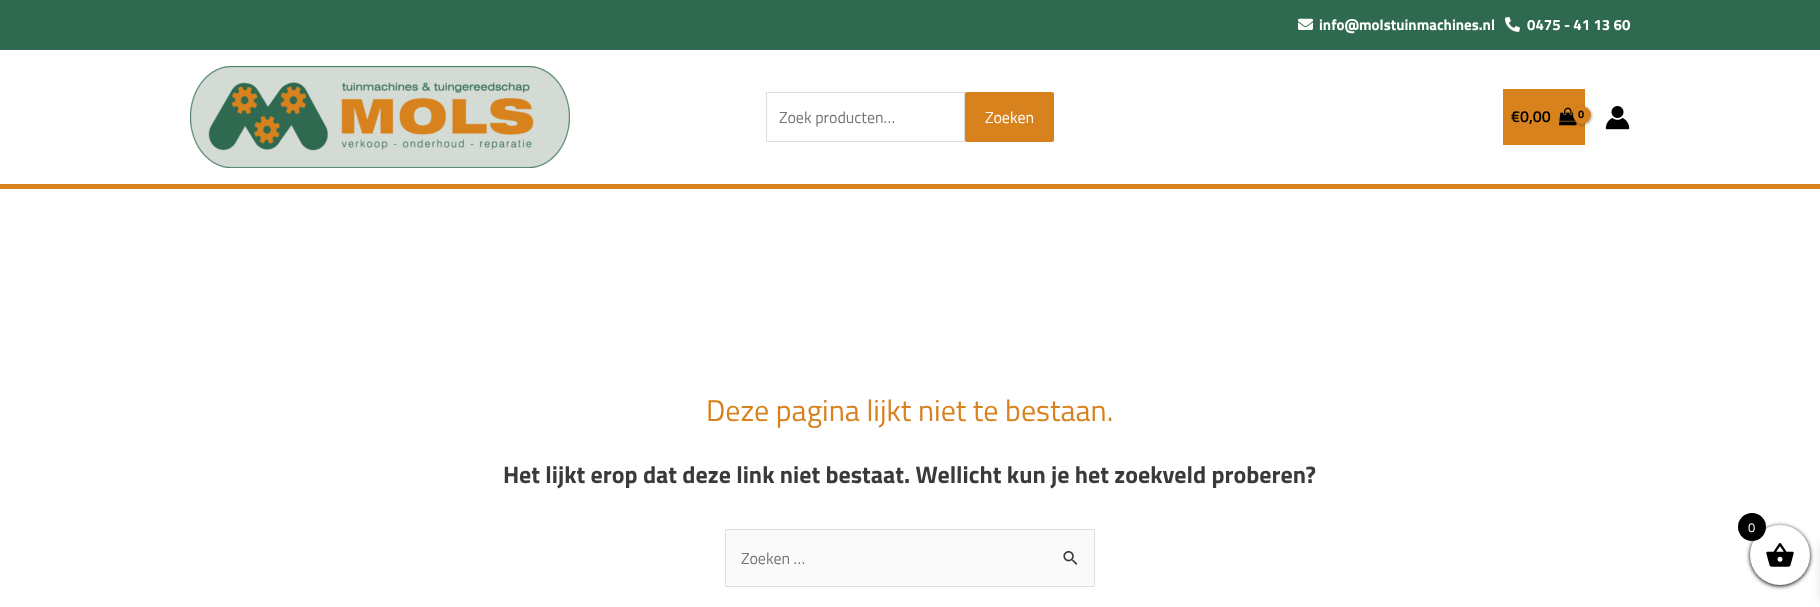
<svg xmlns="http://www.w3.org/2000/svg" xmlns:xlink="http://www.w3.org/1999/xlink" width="1820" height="607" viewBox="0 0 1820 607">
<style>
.cls-1{font:bold 15px Titillium Web;fill:#ffffff}
.cls-2{font:16px Titillium Web;fill:#757575}
.cls-3{font:16px Titillium Web;fill:#ffffff}
.cls-4{font:600 16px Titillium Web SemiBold;fill:#000000}
.cls-5{font:bold 11px Titillium Web;fill:#000000}
.cls-6{font:30px Titillium Web;fill:#d7821c}
.cls-7{font:bold 24px Titillium Web;fill:#3a3a3a}
.cls-8{font:13px Titillium Web;fill:#ffffff}
</style>
<rect width="100%" height="100%" fill="#ffffff"/>
<rect fill="#2e6950" x="0" y="0" width="1820" height="50"/>
<image xlink:href="image0.png" x="1298" y="18" width="15" height="12"/>
<image xlink:href="image1.png" x="1505" y="16" width="15" height="16"/>
<rect fill="#d7821c" x="0" y="184" width="1820" height="5"/>
<image xlink:href="image2.png" x="190" y="66" width="380" height="102"/>
<rect fill="none" stroke="#dddddd" x="766.5" y="92.5" width="198" height="49"/>
<rect fill="#d7821c" x="965" y="92" width="89" height="50" rx="2"/>
<rect fill="#d7821c" x="1503" y="89" width="82" height="56"/>
<image xlink:href="image3.png" x="1559" y="107" width="18" height="19"/>
<rect fill="#000000" fill-opacity="0.3" filter="blur(1.5px)" x="1574" y="107" width="18" height="18" rx="9"/>
<circle fill="#d7821c" cx="1582" cy="115" r="9"/>
<image xlink:href="image4.png" x="1605" y="106" width="25" height="24"/>
<rect fill="#fafafa" stroke="#dddddd" x="725.5" y="529.5" width="369" height="57" rx="1.5"/>
<image xlink:href="image5.png" x="1063" y="551" width="15" height="14"/>
<rect fill="#000000" filter="blur(2px)" x="1750" y="526" width="60" height="60" rx="30"/>
<rect fill="#000000" fill-opacity="0.1" filter="blur(5px)" x="1820" y="544" width="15" height="58"/>
<circle fill="#ffffff" cx="1780" cy="555" r="30"/>
<circle fill="#000000" cx="1752" cy="527" r="14"/>
<image xlink:href="image6.png" x="1766" y="543" width="28" height="24"/>
<text class="cls-1" x="1319" y="30">info@molstuinmachines.nl</text>
<text class="cls-1" x="1527" y="30">0475 - 41 13 60</text>
<text class="cls-2" x="779" y="123">Zoek producten…</text>
<text class="cls-3" x="985" y="123">Zoeken</text>
<text class="cls-4" x="1511" y="122">€0,00</text>
<text class="cls-5" x="1578" y="118">0</text>
<text class="cls-6" x="706" y="421">Deze pagina lijkt niet te bestaan.</text>
<text class="cls-7" x="503" y="483">Het lijkt erop dat deze link niet bestaat. Wellicht kun je het zoekveld proberen?</text>
<text class="cls-2" x="741" y="564">Zoeken …</text>
<text class="cls-8" x="1748" y="532">0</text>
</svg>
